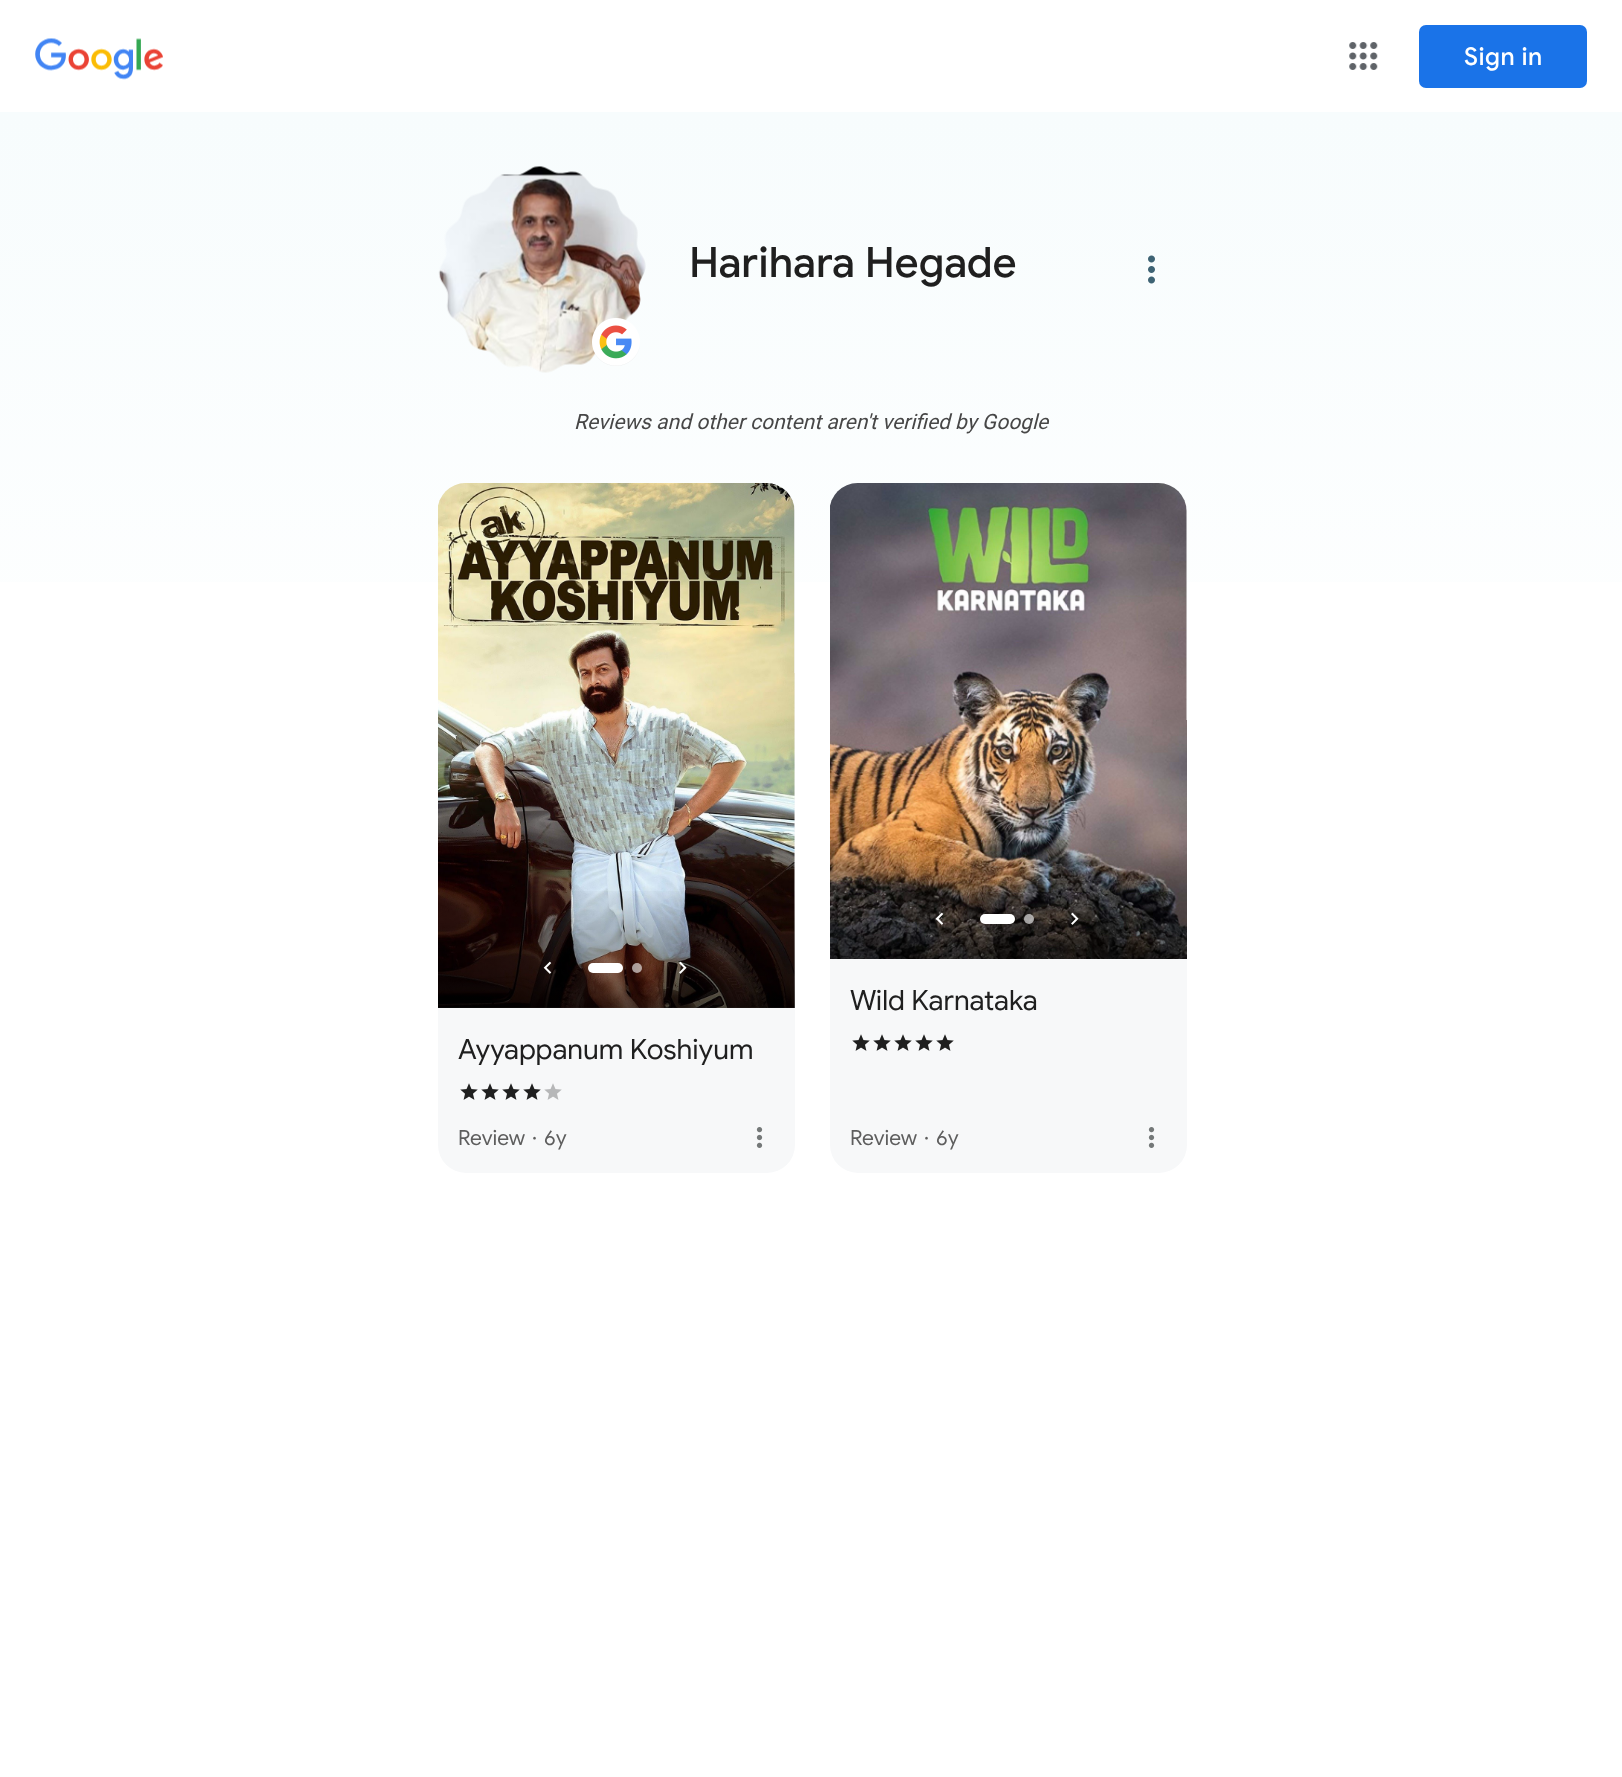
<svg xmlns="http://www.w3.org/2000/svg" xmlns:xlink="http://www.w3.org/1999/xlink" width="1622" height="1777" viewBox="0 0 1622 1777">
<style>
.cls-1{font:500 24.5px Google Sans;letter-spacing:0.5px;fill:#ffffff}
.cls-2{font:500 42px Google Sans;fill:#1f1f1f}
.cls-3{font:italic 21px Roboto;fill:#474747}
.cls-4{font:28px Google Sans;fill:#1f1f1f}
.cls-5{font:21px Google Sans;fill:#5e5e5e}
</style>
<defs>
<linearGradient id="g1" gradientUnits="userSpaceOnUse" x1="811" y1="112" x2="811" y2="795"><stop offset="0" stop-color="#f7fcfd"/><stop offset="1" stop-color="#ffffff"/></linearGradient>
<linearGradient id="g2" gradientUnits="userSpaceOnUse" x1="616" y1="886" x2="616" y2="1008"><stop offset="0" stop-color="#000000" stop-opacity="0"/><stop offset="0.75" stop-color="#000000" stop-opacity="0.4"/><stop offset="1" stop-color="#000000" stop-opacity="0.6"/></linearGradient>
</defs>
<rect width="100%" height="100%" fill="#ffffff"/>
<image xlink:href="image0.png" x="35" y="38" width="128" height="42"/>
<image xlink:href="image1.png" x="1349" y="42" width="29" height="28"/>
<rect fill="#1a73e8" x="1419" y="25" width="168" height="63" rx="7"/>
<rect fill="url(#g1)" x="0" y="112" width="1622" height="470"/>
<image xlink:href="image2.png" x="438" y="166" width="208" height="207"/>
<image xlink:href="image3.png" x="592" y="318" width="48" height="48"/>
<image xlink:href="image4.png" x="1148" y="255" width="7" height="29"/>
<rect fill="#f7f8f9" x="438" y="483" width="357" height="690" rx="28"/>
<image xlink:href="image5.png" x="438" y="483" width="357" height="525"/>
<rect fill="url(#g2)" x="438" y="891" width="357" height="117"/>
<image xlink:href="image6.png" x="543" y="961" width="9" height="13"/>
<rect fill="#ffffff" x="588" y="963" width="35" height="10" rx="5"/>
<circle fill="#ffffff" fill-opacity="0.6" cx="637" cy="968" r="5"/>
<image xlink:href="image7.png" x="679" y="961" width="8" height="13"/>
<image xlink:href="image8.png" x="460" y="1083" width="18" height="17"/>
<image xlink:href="image8.png" x="481" y="1083" width="18" height="17"/>
<image xlink:href="image8.png" x="502" y="1083" width="18" height="17"/>
<image xlink:href="image8.png" x="523" y="1083" width="18" height="17"/>
<image xlink:href="image9.png" x="544" y="1083" width="18" height="17"/>
<image xlink:href="image10.png" x="756" y="1127" width="7" height="21"/>
<rect fill="#f7f8f9" x="830" y="483" width="357" height="690" rx="28"/>
<image xlink:href="image11.png" x="830" y="483" width="357" height="476"/>
<image xlink:href="image12.png" x="935" y="912" width="9" height="13"/>
<rect fill="#ffffff" x="980" y="914" width="35" height="10" rx="5"/>
<circle fill="#ffffff" fill-opacity="0.6" cx="1029" cy="919" r="5"/>
<image xlink:href="image13.png" x="1071" y="912" width="8" height="13"/>
<image xlink:href="image8.png" x="852" y="1034" width="18" height="17"/>
<image xlink:href="image8.png" x="873" y="1034" width="18" height="17"/>
<image xlink:href="image8.png" x="894" y="1034" width="18" height="17"/>
<image xlink:href="image8.png" x="915" y="1034" width="18" height="17"/>
<image xlink:href="image8.png" x="936" y="1034" width="18" height="17"/>
<image xlink:href="image10.png" x="1148" y="1127" width="7" height="21"/>
<text class="cls-1" x="1464" y="65">Sign in</text>
<text class="cls-2" x="689" y="277">Harihara Hegade</text>
<text class="cls-3" x="574" y="429">Reviews and other content aren't verified by Google</text>
<text class="cls-4" x="458" y="1059">Ayyappanum Koshiyum</text>
<text class="cls-5" x="458" y="1145">Review</text>
<text class="cls-5" x="532" y="1145">·</text>
<text class="cls-5" x="544" y="1145">6y</text>
<text class="cls-4" x="850" y="1010">Wild Karnataka</text>
<text class="cls-5" x="850" y="1145">Review</text>
<text class="cls-5" x="924" y="1145">·</text>
<text class="cls-5" x="936" y="1145">6y</text>
</svg>
